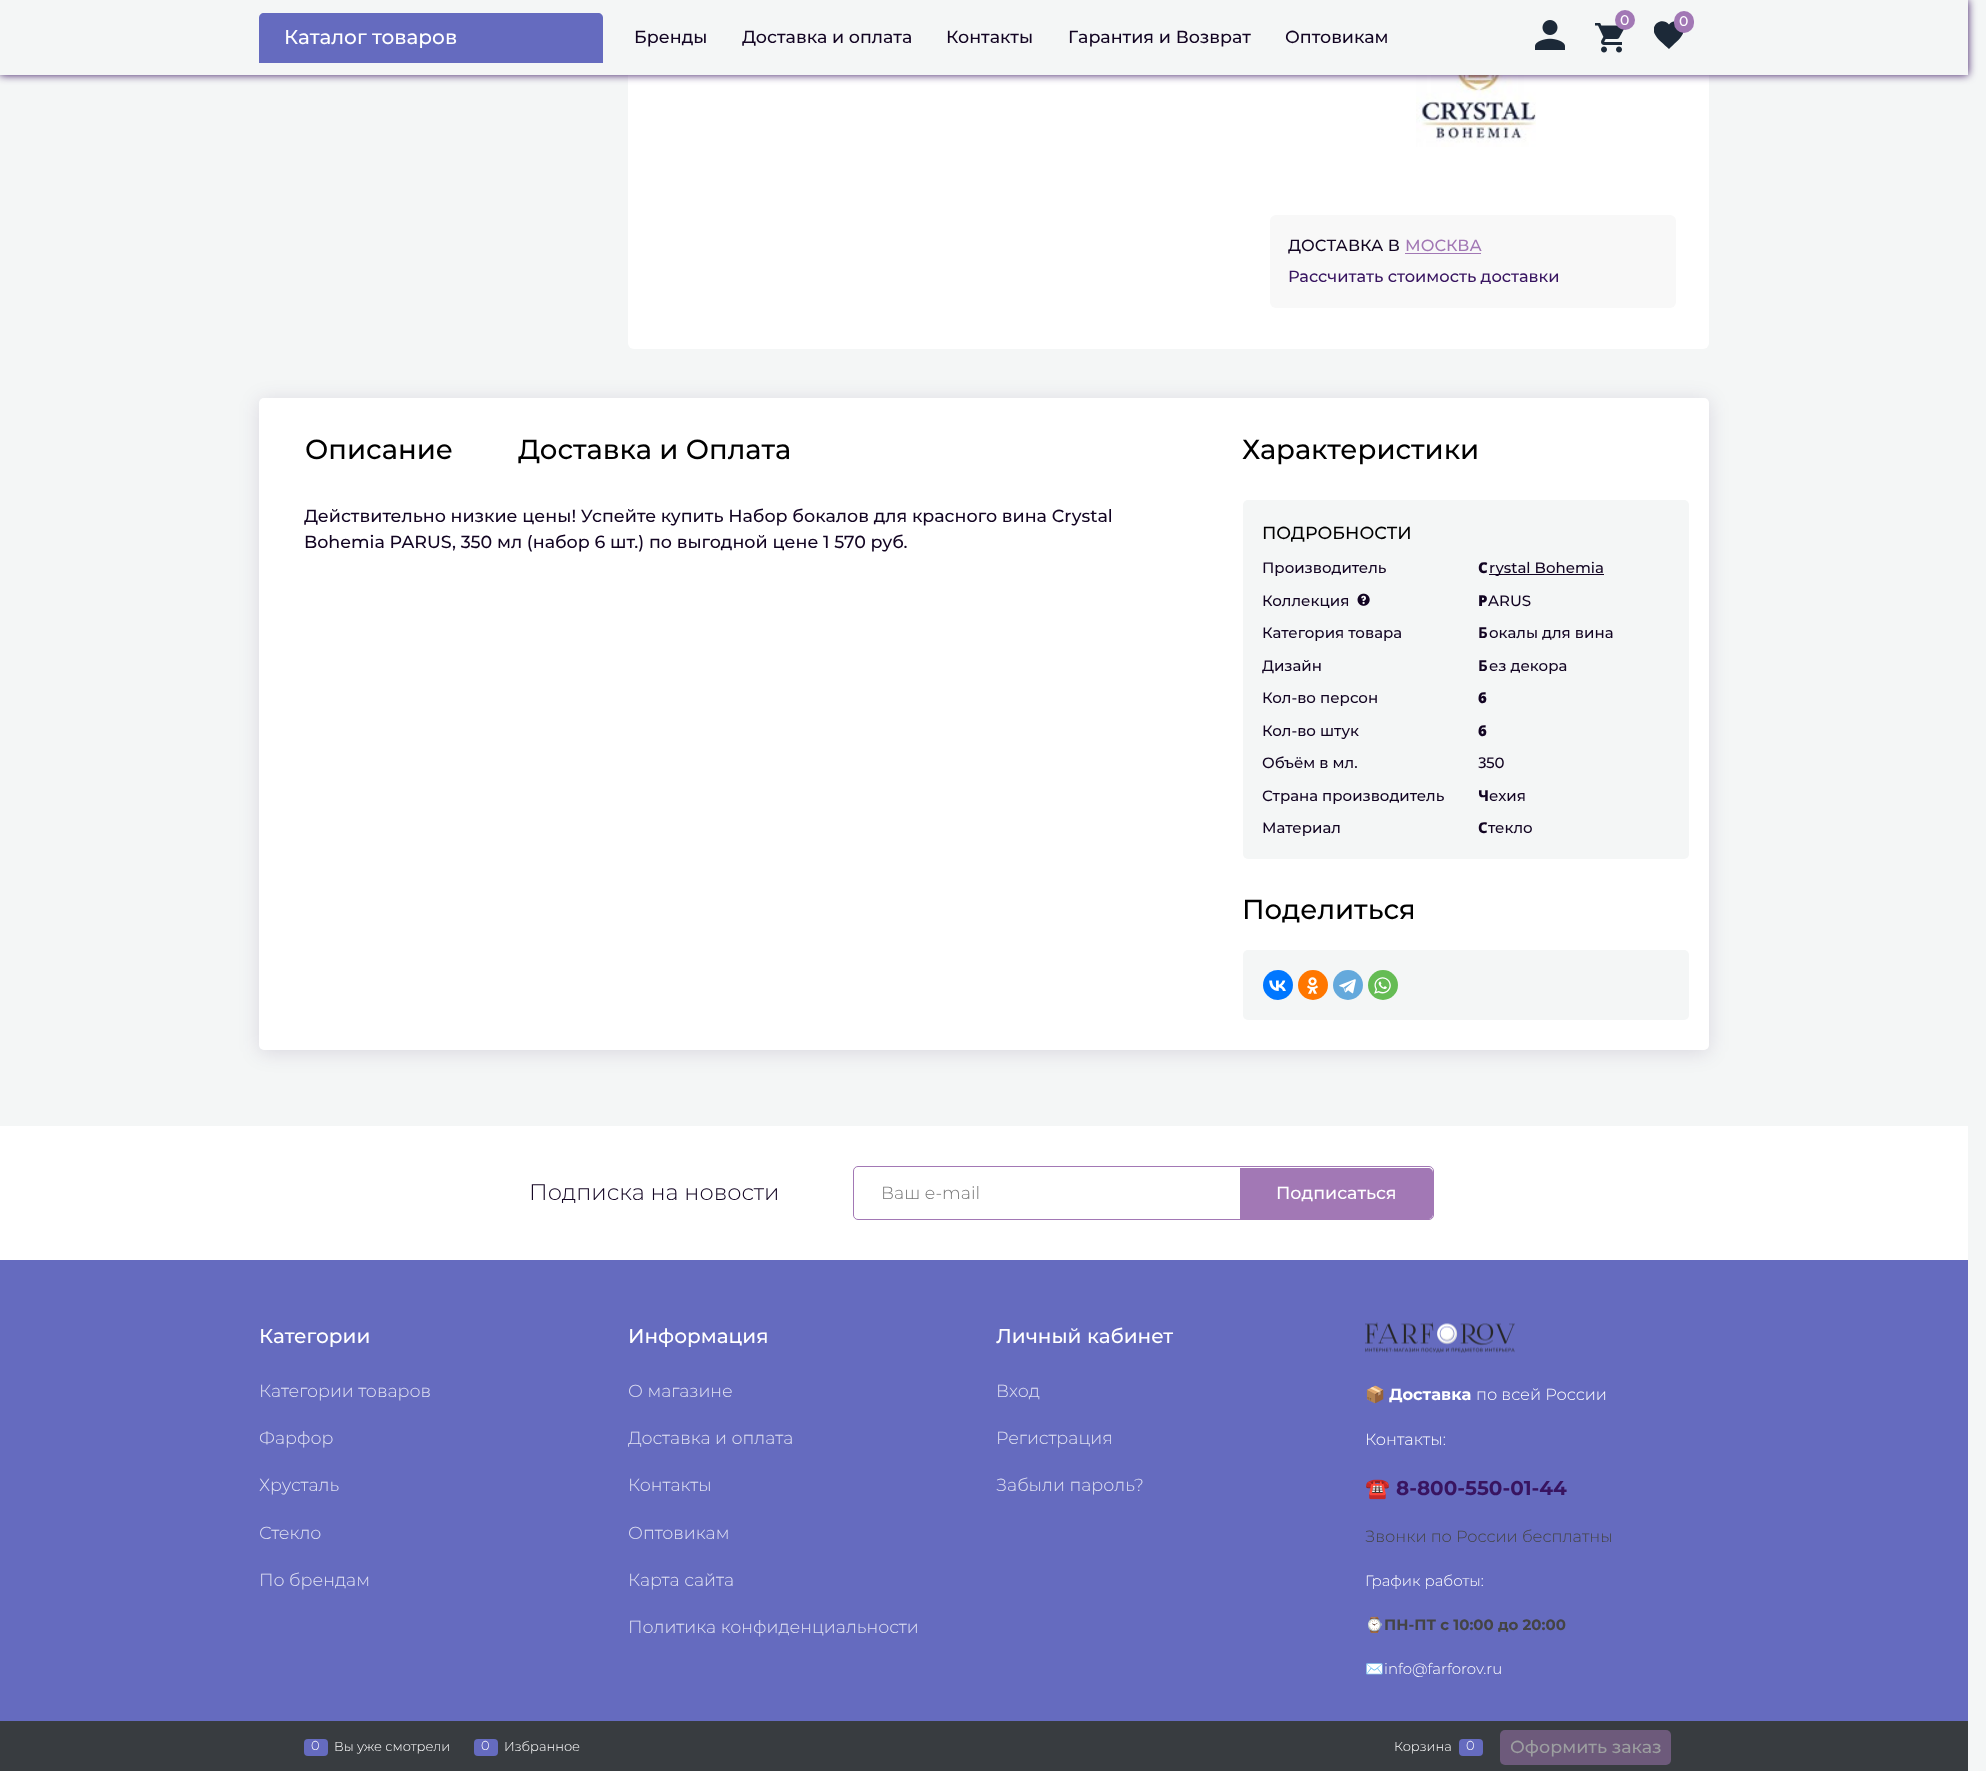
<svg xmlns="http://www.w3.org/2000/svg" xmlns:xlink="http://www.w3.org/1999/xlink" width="1986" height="1771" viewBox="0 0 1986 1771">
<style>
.cls-1{font:500 14px Montserrat;fill:#ffffff}
.cls-2{font:500 20px Montserrat;fill:#ffffff}
.cls-3{font:500 17.5px Montserrat;fill:#120422}
.cls-4{font:500 16.25px Montserrat;fill:#120422}
.cls-5{font:500 16.25px Montserrat;fill:#a278b5}
.cls-6{font:500 16.25px Montserrat;fill:#381460}
.cls-7{font:500 27.5px Montserrat;fill:#000000}
.cls-8{font:500 17.5px Montserrat;fill:#000000}
.cls-9{font:500 15px Montserrat;fill:#120422}
.cls-10{font:900 15px Noto Sans;fill:#120422}
.cls-11{font:bold 15px Noto Sans;fill:#120422}
.cls-12{font:500 15px Noto Sans;fill:#120422}
.cls-13{font:800 15px Noto Sans;fill:#120422}
.cls-14{font:300 22.5px Montserrat;fill:#120422}
.cls-15{font:300 17.5px Montserrat;fill:#757575}
.cls-16{font:500 17.5px Montserrat;fill:#ffffff}
.cls-17{font:300 17.5px Montserrat;fill:#e0e1f2}
.cls-18{font:16.25px Noto Color Emoji;fill:#ffffff}
.cls-19{font:bold 16.25px Montserrat;fill:#ffffff}
.cls-20{font:300 16.25px Montserrat;fill:#ffffff}
.cls-21{font:bold 20px Noto Color Emoji;fill:#444444}
.cls-22{font:bold 20px Montserrat;fill:#381460}
.cls-23{font:300 16.25px Montserrat;fill:#444444}
.cls-24{font:300 15px Montserrat;fill:#ffffff}
.cls-25{font:bold 15px Noto Color Emoji;fill:#444444}
.cls-26{font:bold 15px Montserrat;fill:#444444}
.cls-27{font:15px Noto Color Emoji;fill:#ffffff}
.cls-28{font:300 13px Montserrat;fill:#ffffff}
.cls-29{font:500 17.5px Montserrat;fill:#9c9ea0}
</style>
<defs>
<clipPath id="clip1"><rect x="1654" y="21" width="30" height="29"/></clipPath>
</defs>
<rect width="100%" height="100%" fill="#f4f6f6"/>
<rect fill="#ffffff" x="628" y="-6" width="1081" height="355" rx="6"/>
<image xlink:href="image2.png" x="1416" y="75" width="120" height="72"/>
<rect fill="#381460" filter="blur(4px)" x="0" y="0" width="1968" height="75"/>
<rect fill="#f4f6f6" x="0" y="0" width="1968" height="75"/>
<image xlink:href="image0.png" x="1535" y="20" width="30" height="30"/>
<image xlink:href="image1.png" x="1595" y="23" width="29" height="30"/>
<circle fill="#a278b5" cx="1625" cy="20" r="10"/>
<g clip-path="url(#clip1)">
<path fill="#1c2938" d="M1669 49C1664 44 1657.5 40 1654.5 33.5C1650.5 24 1662.5 17 1669 24.5C1675 17 1687 24 1683 33.5C1680 40 1673.5 44 1669 49Z"/>
</g>
<rect fill="#a278b5" x="1674" y="11" width="20" height="22" rx="10"/>
<path fill="#656bbf" d="M264 13H598C601 13 603 15 603 18V63H259V18C259 15 261 13 264 13Z"/>
<rect fill="#f8f8f8" x="1270" y="215" width="406" height="93" rx="6"/>
<rect fill="#a278b5" x="1405" y="253" width="76" height="1"/>
<rect fill="#240041" fill-opacity="0.12" filter="blur(10px)" x="259" y="400" width="1450" height="653" rx="5"/>
<rect fill="#ffffff" x="259" y="398" width="1450" height="652" rx="5"/>
<rect fill="#f4f6f6" x="1243" y="500" width="446" height="359" rx="5"/>
<rect fill="#120422" x="1489" y="574" width="115" height="1"/>
<image xlink:href="image3.png" x="1357" y="593" width="13" height="13"/>
<rect fill="#f4f6f6" x="1243" y="950" width="446" height="70" rx="5"/>
<circle fill="#0077ff" cx="1278" cy="985" r="15"/>
<image xlink:href="image4.png" x="1269" y="980" width="17" height="11"/>
<circle fill="#ff7700" cx="1313" cy="985" r="15"/>
<image xlink:href="image5.png" x="1307" y="977" width="12" height="17"/>
<circle fill="#64a9dc" cx="1348" cy="985" r="15"/>
<image xlink:href="image6.png" x="1339" y="979" width="17" height="15"/>
<circle fill="#65bc54" cx="1383" cy="985" r="15"/>
<image xlink:href="image7.png" x="1374" y="977" width="17" height="17"/>
<rect fill="#ffffff" x="0" y="1126" width="1968" height="134"/>
<rect fill="none" stroke="#a278b5" x="853.5" y="1166.5" width="580" height="53" rx="4.5"/>
<path fill="#a278b5" d="M1240 1168H1428C1431 1168 1433 1170 1433 1173V1214C1433 1217 1431 1219 1428 1219H1240Z"/>
<rect fill="#656bbf" x="0" y="1260" width="1968" height="461"/>
<image xlink:href="image8.png" x="1365" y="1322" width="150" height="31"/>
<rect fill="#383c40" x="0" y="1721" width="1968" height="50"/>
<rect fill="#656bbf" x="304" y="1739" width="24" height="17" rx="4"/>
<rect fill="#656bbf" x="474" y="1739" width="24" height="17" rx="4"/>
<rect fill="#656bbf" x="1459" y="1739" width="24" height="17" rx="4"/>
<rect fill="#6d5a7b" x="1500" y="1730" width="171" height="35" rx="5"/>
<text class="cls-1" x="1620" y="25">0</text>
<text class="cls-1" x="1679" y="26">0</text>
<text class="cls-2" x="284" y="44">Каталог товаров</text>
<text class="cls-3" x="634" y="43">Бренды</text>
<text class="cls-3" x="742" y="43">Доставка и оплата</text>
<text class="cls-3" x="946" y="43">Контакты</text>
<text class="cls-3" x="1068" y="43">Гарантия и Возврат</text>
<text class="cls-3" x="1285" y="43">Оптовикам</text>
<text class="cls-4" x="1288" y="251">ДОСТАВКА В</text>
<text class="cls-5" x="1405" y="251">МОСКВА</text>
<text class="cls-6" x="1288" y="282">Рассчитать стоимость доставки</text>
<text class="cls-7" x="305" y="459">Описание</text>
<text class="cls-7" x="518" y="459">Доставка и Оплата</text>
<text class="cls-3"><tspan x="304" y="522">Действительно низкие цены! Успейте купить Набор бокалов для красного вина Crystal</tspan><tspan x="304" y="548">Bohemia PARUS, 350 мл (набор 6 шт.) по выгодной цене 1 570 руб.</tspan></text>
<text class="cls-7" x="1242" y="459">Характеристики</text>
<text class="cls-8" x="1262" y="539">ПОДРОБНОСТИ</text>
<text class="cls-9" x="1262" y="573">Производитель</text>
<text class="cls-10" x="1478" y="573">C</text>
<text class="cls-9" x="1489" y="573">rystal Bohemia</text>
<text class="cls-9" x="1262" y="606">Коллекция</text>
<text class="cls-10" x="1478" y="606">P</text>
<text class="cls-9" x="1488" y="606">ARUS</text>
<text class="cls-9" x="1262" y="638">Категория товара</text>
<text class="cls-11" x="1478" y="638">Б</text>
<text class="cls-9" x="1489" y="638">окалы для вина</text>
<text class="cls-9" x="1262" y="671">Дизайн</text>
<text class="cls-11" x="1478" y="671">Б</text>
<text class="cls-9" x="1489" y="671">ез декора</text>
<text class="cls-9" x="1262" y="703">Кол-во персон</text>
<text class="cls-10" x="1478" y="703">6</text>
<text class="cls-9" x="1262" y="736">Кол-во штук</text>
<text class="cls-10" x="1478" y="736">6</text>
<text class="cls-9" x="1262" y="768">Объём в мл.</text>
<text class="cls-12" x="1478" y="768">3</text>
<text class="cls-9" x="1486" y="768">50</text>
<text class="cls-9" x="1262" y="801">Страна производитель</text>
<text class="cls-13" x="1478" y="801">Ч</text>
<text class="cls-9" x="1489" y="801">ехия</text>
<text class="cls-9" x="1262" y="833">Материал</text>
<text class="cls-13" x="1478" y="833">С</text>
<text class="cls-9" x="1488" y="833">текло</text>
<text class="cls-7" x="1242" y="919">Поделиться</text>
<text class="cls-14" x="529" y="1200">Подписка на новости</text>
<text class="cls-15" x="881" y="1199">Ваш e-mail</text>
<text class="cls-16" x="1276" y="1199">Подписаться</text>
<text class="cls-2" x="259" y="1343">Категории</text>
<text class="cls-17" x="259" y="1397">Категории товаров</text>
<text class="cls-17" x="259" y="1444">Фарфор</text>
<text class="cls-17" x="259" y="1491">Хрусталь</text>
<text class="cls-17" x="259" y="1539">Стекло</text>
<text class="cls-17" x="259" y="1586">По брендам</text>
<text class="cls-2" x="628" y="1343">Информация</text>
<text class="cls-17" x="628" y="1397">О магазине</text>
<text class="cls-17" x="628" y="1444">Доставка и оплата</text>
<text class="cls-17" x="628" y="1491">Контакты</text>
<text class="cls-17" x="628" y="1539">Оптовикам</text>
<text class="cls-17" x="628" y="1586">Карта сайта</text>
<text class="cls-17" x="628" y="1633">Политика конфиденциальности</text>
<text class="cls-2" x="996" y="1343">Личный кабинет</text>
<text class="cls-17" x="996" y="1397">Вход</text>
<text class="cls-17" x="996" y="1444">Регистрация</text>
<text class="cls-17" x="996" y="1491">Забыли пароль?</text>
<text class="cls-18" x="1365" y="1400">📦</text>
<text class="cls-19" x="1389" y="1400">Доставка</text>
<text class="cls-20" x="1476" y="1400">по всей России</text>
<text class="cls-20" x="1365" y="1445">Контакты:</text>
<text class="cls-21" x="1365" y="1495">☎️</text>
<text class="cls-22" x="1396" y="1495">8-800-550-01-44</text>
<text class="cls-23" x="1365" y="1542">Звонки по России бесплатны</text>
<text class="cls-24" x="1365" y="1586">График работы:</text>
<text class="cls-25" x="1365" y="1630">⌚️</text>
<text class="cls-26" x="1384" y="1630">ПН-ПТ с 10:00 до 20:00</text>
<text class="cls-27" x="1365" y="1674">✉️</text>
<text class="cls-24" x="1384" y="1674">info@farforov.ru</text>
<text class="cls-28" x="311" y="1750">0</text>
<text class="cls-28" x="334" y="1751">Вы уже смотрели</text>
<text class="cls-28" x="481" y="1750">0</text>
<text class="cls-28" x="504" y="1751">Избранное</text>
<text class="cls-28" x="1394" y="1751">Корзина</text>
<text class="cls-28" x="1466" y="1750">0</text>
<text class="cls-29" x="1510" y="1753">Оформить заказ</text>
</svg>
